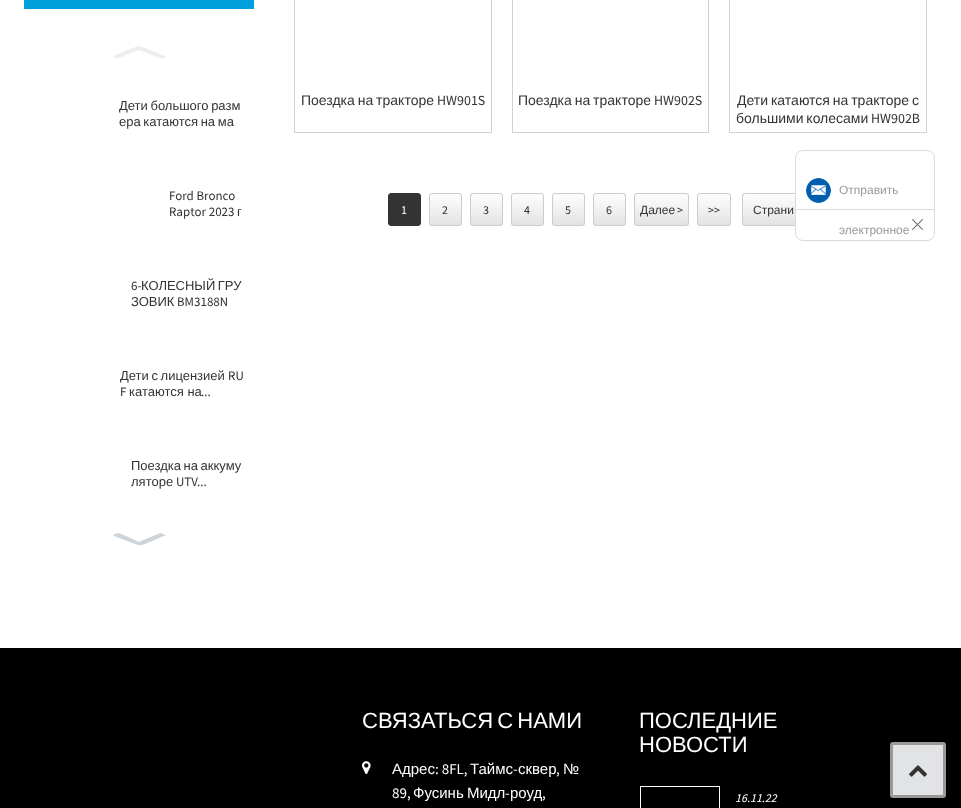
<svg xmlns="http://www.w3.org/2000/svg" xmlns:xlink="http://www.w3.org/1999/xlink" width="961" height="808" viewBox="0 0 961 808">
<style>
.cls-1{font:13px Liberation Sans;fill:#333333}
.cls-2{font:13px Source Sans Pro;fill:#333333}
.cls-3{font:14px Liberation Sans;fill:#333333}
.cls-4{font:14px Source Sans Pro;fill:#333333}
.cls-5{font:12px Source Sans Pro;fill:#ffffff}
.cls-6{font:12px Source Sans Pro;fill:#333333}
.cls-7{font:12px Liberation Sans;fill:#333333}
.cls-8{font:12px Liberation Sans;fill:#999999}
.cls-9{font:22px Liberation Sans;fill:#ffffff}
.cls-10{font:15px Liberation Sans;fill:#ffffff}
.cls-11{font:15px Source Sans Pro;fill:#ffffff}
.cls-12{font:italic 12px Source Sans Pro;fill:#ffffff}
</style>
<defs>
<clipPath id="clip1"><rect x="429" y="193" width="33" height="33" rx="3"/></clipPath>
<linearGradient id="g1" gradientUnits="userSpaceOnUse" x1="430" y1="194" x2="430" y2="225"><stop offset="0" stop-color="#fefefe"/><stop offset="1" stop-color="#e3e3e3"/></linearGradient>
<clipPath id="clip2"><rect x="470" y="193" width="33" height="33" rx="3"/></clipPath>
<linearGradient id="g2" gradientUnits="userSpaceOnUse" x1="471" y1="194" x2="471" y2="225"><stop offset="0" stop-color="#fefefe"/><stop offset="1" stop-color="#e3e3e3"/></linearGradient>
<clipPath id="clip3"><rect x="511" y="193" width="33" height="33" rx="3"/></clipPath>
<linearGradient id="g3" gradientUnits="userSpaceOnUse" x1="512" y1="194" x2="512" y2="225"><stop offset="0" stop-color="#fefefe"/><stop offset="1" stop-color="#e3e3e3"/></linearGradient>
<clipPath id="clip4"><rect x="552" y="193" width="33" height="33" rx="3"/></clipPath>
<linearGradient id="g4" gradientUnits="userSpaceOnUse" x1="553" y1="194" x2="553" y2="225"><stop offset="0" stop-color="#fefefe"/><stop offset="1" stop-color="#e3e3e3"/></linearGradient>
<clipPath id="clip5"><rect x="593" y="193" width="33" height="33" rx="3"/></clipPath>
<linearGradient id="g5" gradientUnits="userSpaceOnUse" x1="594" y1="194" x2="594" y2="225"><stop offset="0" stop-color="#fefefe"/><stop offset="1" stop-color="#e3e3e3"/></linearGradient>
<clipPath id="clip6"><rect x="634" y="193" width="55" height="33" rx="3"/></clipPath>
<linearGradient id="g6" gradientUnits="userSpaceOnUse" x1="635" y1="194" x2="635" y2="225"><stop offset="0" stop-color="#fefefe"/><stop offset="1" stop-color="#e3e3e3"/></linearGradient>
<clipPath id="clip7"><rect x="697" y="193" width="34" height="33" rx="3"/></clipPath>
<linearGradient id="g7" gradientUnits="userSpaceOnUse" x1="698" y1="194" x2="698" y2="225"><stop offset="0" stop-color="#fefefe"/><stop offset="1" stop-color="#e3e3e3"/></linearGradient>
<clipPath id="clip8"><rect x="742" y="193" width="99" height="33" rx="3"/></clipPath>
<linearGradient id="g8" gradientUnits="userSpaceOnUse" x1="743" y1="194" x2="743" y2="225"><stop offset="0" stop-color="#fefefe"/><stop offset="1" stop-color="#e3e3e3"/></linearGradient>
</defs>
<rect width="100%" height="100%" fill="#ffffff"/>
<rect fill="#00a0dd" x="24" y="0" width="230" height="9"/>
<path fill="#eeeeee" d="M165 56L166 57L164 58C161 59 160 58 157 57L139 50L126 55C119 58 119 59 114 57C113 57 113 56 113 56L130 49C139 46 137 45 145 48Z"/>
<path fill="#ccd3d9" d="M165 535C166 535 166 535 166 535L145 544C143 544 140 546 138 545L114 536L113 535L115 534C119 532 121 534 126 536L139 542L153 536C160 533 160 532 165 535Z"/>
<rect fill="none" stroke="#d2d2d2" x="294.5" y="-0.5" width="197" height="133"/>
<rect fill="none" stroke="#d2d2d2" x="512.5" y="-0.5" width="196" height="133"/>
<rect fill="none" stroke="#d2d2d2" x="729.5" y="-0.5" width="197" height="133"/>
<rect fill="#333333" stroke="#333333" x="388.5" y="193.5" width="32" height="32" rx="2.5"/>
<g clip-path="url(#clip1)">
<rect fill="url(#g1)" x="429" y="194" width="33" height="31"/>
</g>
<rect fill="none" stroke="#cccccc" x="429.5" y="193.5" width="32" height="32" rx="2.5"/>
<g clip-path="url(#clip2)">
<rect fill="url(#g2)" x="470" y="194" width="33" height="31"/>
</g>
<rect fill="none" stroke="#cccccc" x="470.5" y="193.5" width="32" height="32" rx="2.5"/>
<g clip-path="url(#clip3)">
<rect fill="url(#g3)" x="511" y="194" width="33" height="31"/>
</g>
<rect fill="none" stroke="#cccccc" x="511.5" y="193.5" width="32" height="32" rx="2.5"/>
<g clip-path="url(#clip4)">
<rect fill="url(#g4)" x="552" y="194" width="33" height="31"/>
</g>
<rect fill="none" stroke="#cccccc" x="552.5" y="193.5" width="32" height="32" rx="2.5"/>
<g clip-path="url(#clip5)">
<rect fill="url(#g5)" x="593" y="194" width="33" height="31"/>
</g>
<rect fill="none" stroke="#cccccc" x="593.5" y="193.5" width="32" height="32" rx="2.5"/>
<g clip-path="url(#clip6)">
<rect fill="url(#g6)" x="634" y="194" width="55" height="31"/>
</g>
<rect fill="none" stroke="#cccccc" x="634.5" y="193.5" width="54" height="32" rx="2.5"/>
<g clip-path="url(#clip7)">
<rect fill="url(#g7)" x="697" y="194" width="34" height="31"/>
</g>
<rect fill="none" stroke="#cccccc" x="697.5" y="193.5" width="33" height="32" rx="2.5"/>
<g clip-path="url(#clip8)">
<rect fill="url(#g8)" x="742" y="194" width="53" height="31"/>
</g>
<rect fill="none" stroke="#cccccc" x="742.5" y="193.5" width="98" height="32" rx="2.5"/>
<rect fill="#ffffff" stroke="#dadada" x="795.5" y="150.5" width="139" height="90" rx="7.5"/>
<rect fill="#dadada" x="796" y="209" width="138" height="1"/>
<image xlink:href="image0.png" x="806" y="178" width="25" height="25"/>
<image xlink:href="image1.png" x="912" y="219" width="11" height="11"/>
<rect fill="#000000" x="0" y="648" width="961" height="160"/>
<image xlink:href="image2.png" x="362" y="761" width="9" height="13"/>
<rect fill="none" stroke="#ffffff" x="640.5" y="786.5" width="79" height="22"/>
<rect fill="#e1e3e5" stroke="#999999" stroke-width="3" x="891.5" y="743.5" width="53" height="53" rx="1.5"/>
<image xlink:href="image3.png" x="909" y="765" width="18" height="12"/>
<text class="cls-1"><tspan x="119" y="110" word-spacing="-1">Дети большого разм</tspan><tspan x="119" y="126" word-spacing="-1">ера катаются на ма</tspan></text>
<text class="cls-2"><tspan x="169" y="200">Ford Bronco</tspan><tspan x="169" y="216">Raptor 2023</tspan></text>
<text class="cls-1" x="237" y="216">г</text>
<text class="cls-2" x="131" y="290">6-</text>
<text class="cls-1" x="141" y="290" word-spacing="-1">КОЛЕСНЫЙ ГРУ</text>
<text class="cls-1" x="131" y="306">ЗОВИК</text>
<text class="cls-2" x="177" y="306">BM3188N</text>
<text class="cls-1" x="120" y="380" word-spacing="-1">Дети с лицензией</text>
<text class="cls-2" x="228" y="380">RU</text>
<text class="cls-2" x="120" y="396">F</text>
<text class="cls-1" x="129" y="396">катаются на</text>
<text class="cls-2" x="201" y="396">...</text>
<text class="cls-1"><tspan x="131" y="470" word-spacing="-1">Поездка на аккуму</tspan><tspan x="131" y="486">ляторе</tspan></text>
<text class="cls-2" x="176" y="486">UTV...</text>
<text class="cls-3" x="301" y="105" word-spacing="-1">Поездка на тракторе</text>
<text class="cls-4" x="437" y="105">HW901S</text>
<text class="cls-3" x="518" y="105" word-spacing="-1">Поездка на тракторе</text>
<text class="cls-4" x="654" y="105">HW902S</text>
<text class="cls-3" x="737" y="105" word-spacing="-1">Дети катаются на тракторе с</text>
<text class="cls-3" x="736" y="123" word-spacing="-1">большими колесами</text>
<text class="cls-4" x="871" y="123">HW902B</text>
<text class="cls-5" x="401" y="214">1</text>
<text class="cls-6" x="442" y="214">2</text>
<text class="cls-6" x="483" y="214">3</text>
<text class="cls-6" x="524" y="214">4</text>
<text class="cls-6" x="565" y="214">5</text>
<text class="cls-6" x="606" y="214">6</text>
<text class="cls-7" x="640" y="214">Далее</text>
<text class="cls-6" x="677" y="214">&gt;</text>
<text class="cls-6" x="708" y="214">&gt;&gt;</text>
<text class="cls-7" x="753" y="214">Страни</text>
<text class="cls-8" x="839" y="194">Отправить</text>
<text class="cls-8" x="839" y="234">электронное</text>
<text class="cls-9" x="362" y="728" word-spacing="-2">СВЯЗАТЬСЯ С НАМИ</text>
<text class="cls-10" x="392" y="774">Адрес</text>
<text class="cls-11" x="435" y="774">: 8FL,</text>
<text class="cls-10" x="470" y="774">Таймс</text>
<text class="cls-11" x="513" y="774">-</text>
<text class="cls-10" x="518" y="774">сквер</text>
<text class="cls-10" x="563" y="774">№</text>
<text class="cls-11" x="556" y="774">,</text>
<text class="cls-11" x="392" y="798">89,</text>
<text class="cls-10" x="413" y="798" word-spacing="-1">Фусинь Мидл</text>
<text class="cls-11" x="505" y="798">-</text>
<text class="cls-10" x="510" y="798">роуд</text>
<text class="cls-11" x="542" y="798">,</text>
<text class="cls-9"><tspan x="639" y="728">ПОСЛЕДНИЕ</tspan><tspan x="639" y="752">НОВОСТИ</tspan></text>
<text class="cls-12" x="735" y="802">16.11.22</text>
</svg>
